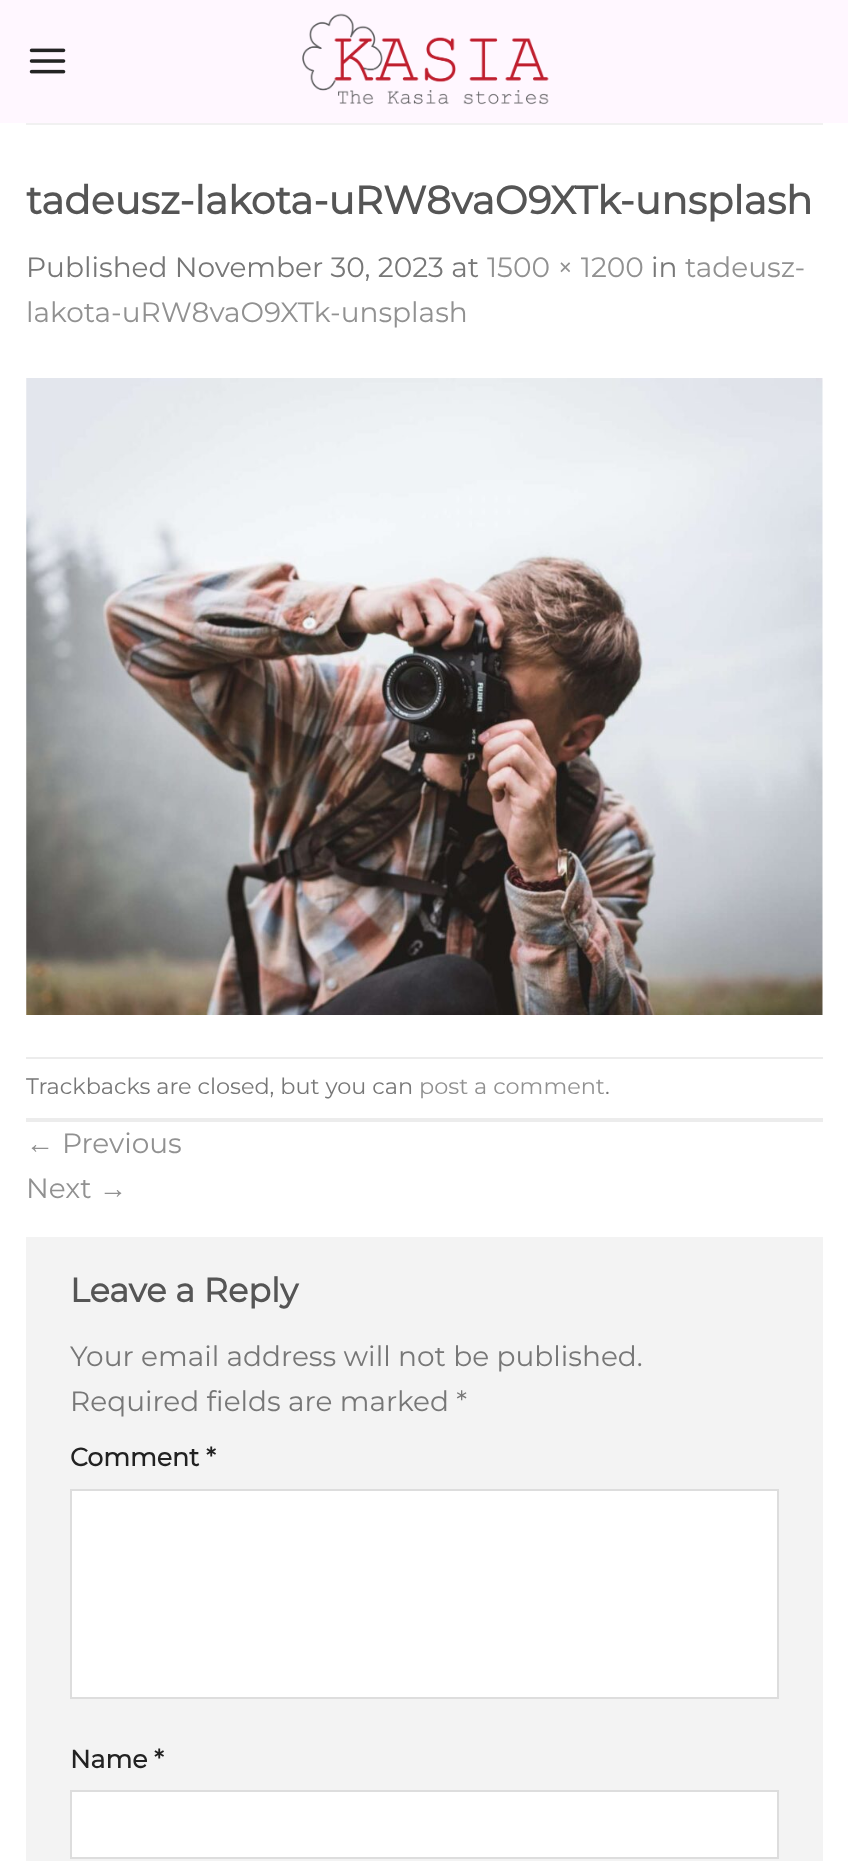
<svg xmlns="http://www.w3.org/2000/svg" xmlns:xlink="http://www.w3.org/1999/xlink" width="848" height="1861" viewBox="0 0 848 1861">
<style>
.cls-1{font:bold 39.2px Montserrat;fill:#555555}
.cls-2{font:28px Montserrat;fill:#777777}
.cls-3{font:28px Montserrat;fill:#919191}
.cls-4{font:22.4px Montserrat;fill:#777777}
.cls-5{font:22.4px Montserrat;fill:#919191}
.cls-6{font:28px Liberation Sans;fill:#919191}
.cls-7{font:bold 33.5px Montserrat;fill:#555555}
.cls-8{font:bold 25.25px Montserrat;fill:#222222}
</style>
<rect width="100%" height="100%" fill="#ffffff"/>
<rect fill="#fff7ff" x="0" y="0" width="848" height="123"/>
<image xlink:href="image0.png" x="29" y="48" width="37" height="26"/>
<image xlink:href="image1.png" x="302" y="13" width="247" height="92"/>
<rect fill="#f1f1f1" x="26" y="123" width="797" height="2"/>
<image xlink:href="image2.png" x="26" y="378" width="797" height="637"/>
<rect fill="#ececec" x="26" y="1057" width="797" height="2"/>
<rect fill="#ececec" x="26" y="1118" width="797" height="4"/>
<rect fill="#f3f3f3" x="26" y="1237" width="797" height="624"/>
<rect fill="#ffffff" stroke="#dddddd" stroke-width="2" x="71" y="1490" width="707" height="208"/>
<rect fill="#ffffff" stroke="#dddddd" stroke-width="2" x="71" y="1791" width="707" height="67"/>
<text class="cls-1" x="26" y="214">tadeusz-lakota-uRW8vaO9XTk-unsplash</text>
<text class="cls-2" x="26" y="277">Published November 30, 2023 at</text>
<text class="cls-3" x="487" y="277">1500 × 1200</text>
<text class="cls-2" x="651" y="277">in</text>
<text class="cls-3" x="685" y="277">tadeusz-</text>
<text class="cls-3" x="26" y="322">lakota-uRW8vaO9XTk-unsplash</text>
<text class="cls-4" x="26" y="1094">Trackbacks are closed, but you can</text>
<text class="cls-5" x="419" y="1094">post a comment</text>
<text class="cls-4" x="605" y="1094">.</text>
<text class="cls-6" x="26" y="1153">←</text>
<text class="cls-3" x="62" y="1153">Previous</text>
<text class="cls-3" x="26" y="1198">Next</text>
<text class="cls-6" x="99" y="1198">→</text>
<text class="cls-7" x="70" y="1302">Leave a Reply</text>
<text class="cls-2"><tspan x="70" y="1366">Your email address will not be published.</tspan><tspan x="70" y="1411">Required fields are marked *</tspan></text>
<text class="cls-8" x="70" y="1466">Comment *</text>
<text class="cls-8" x="70" y="1768">Name *</text>
</svg>
